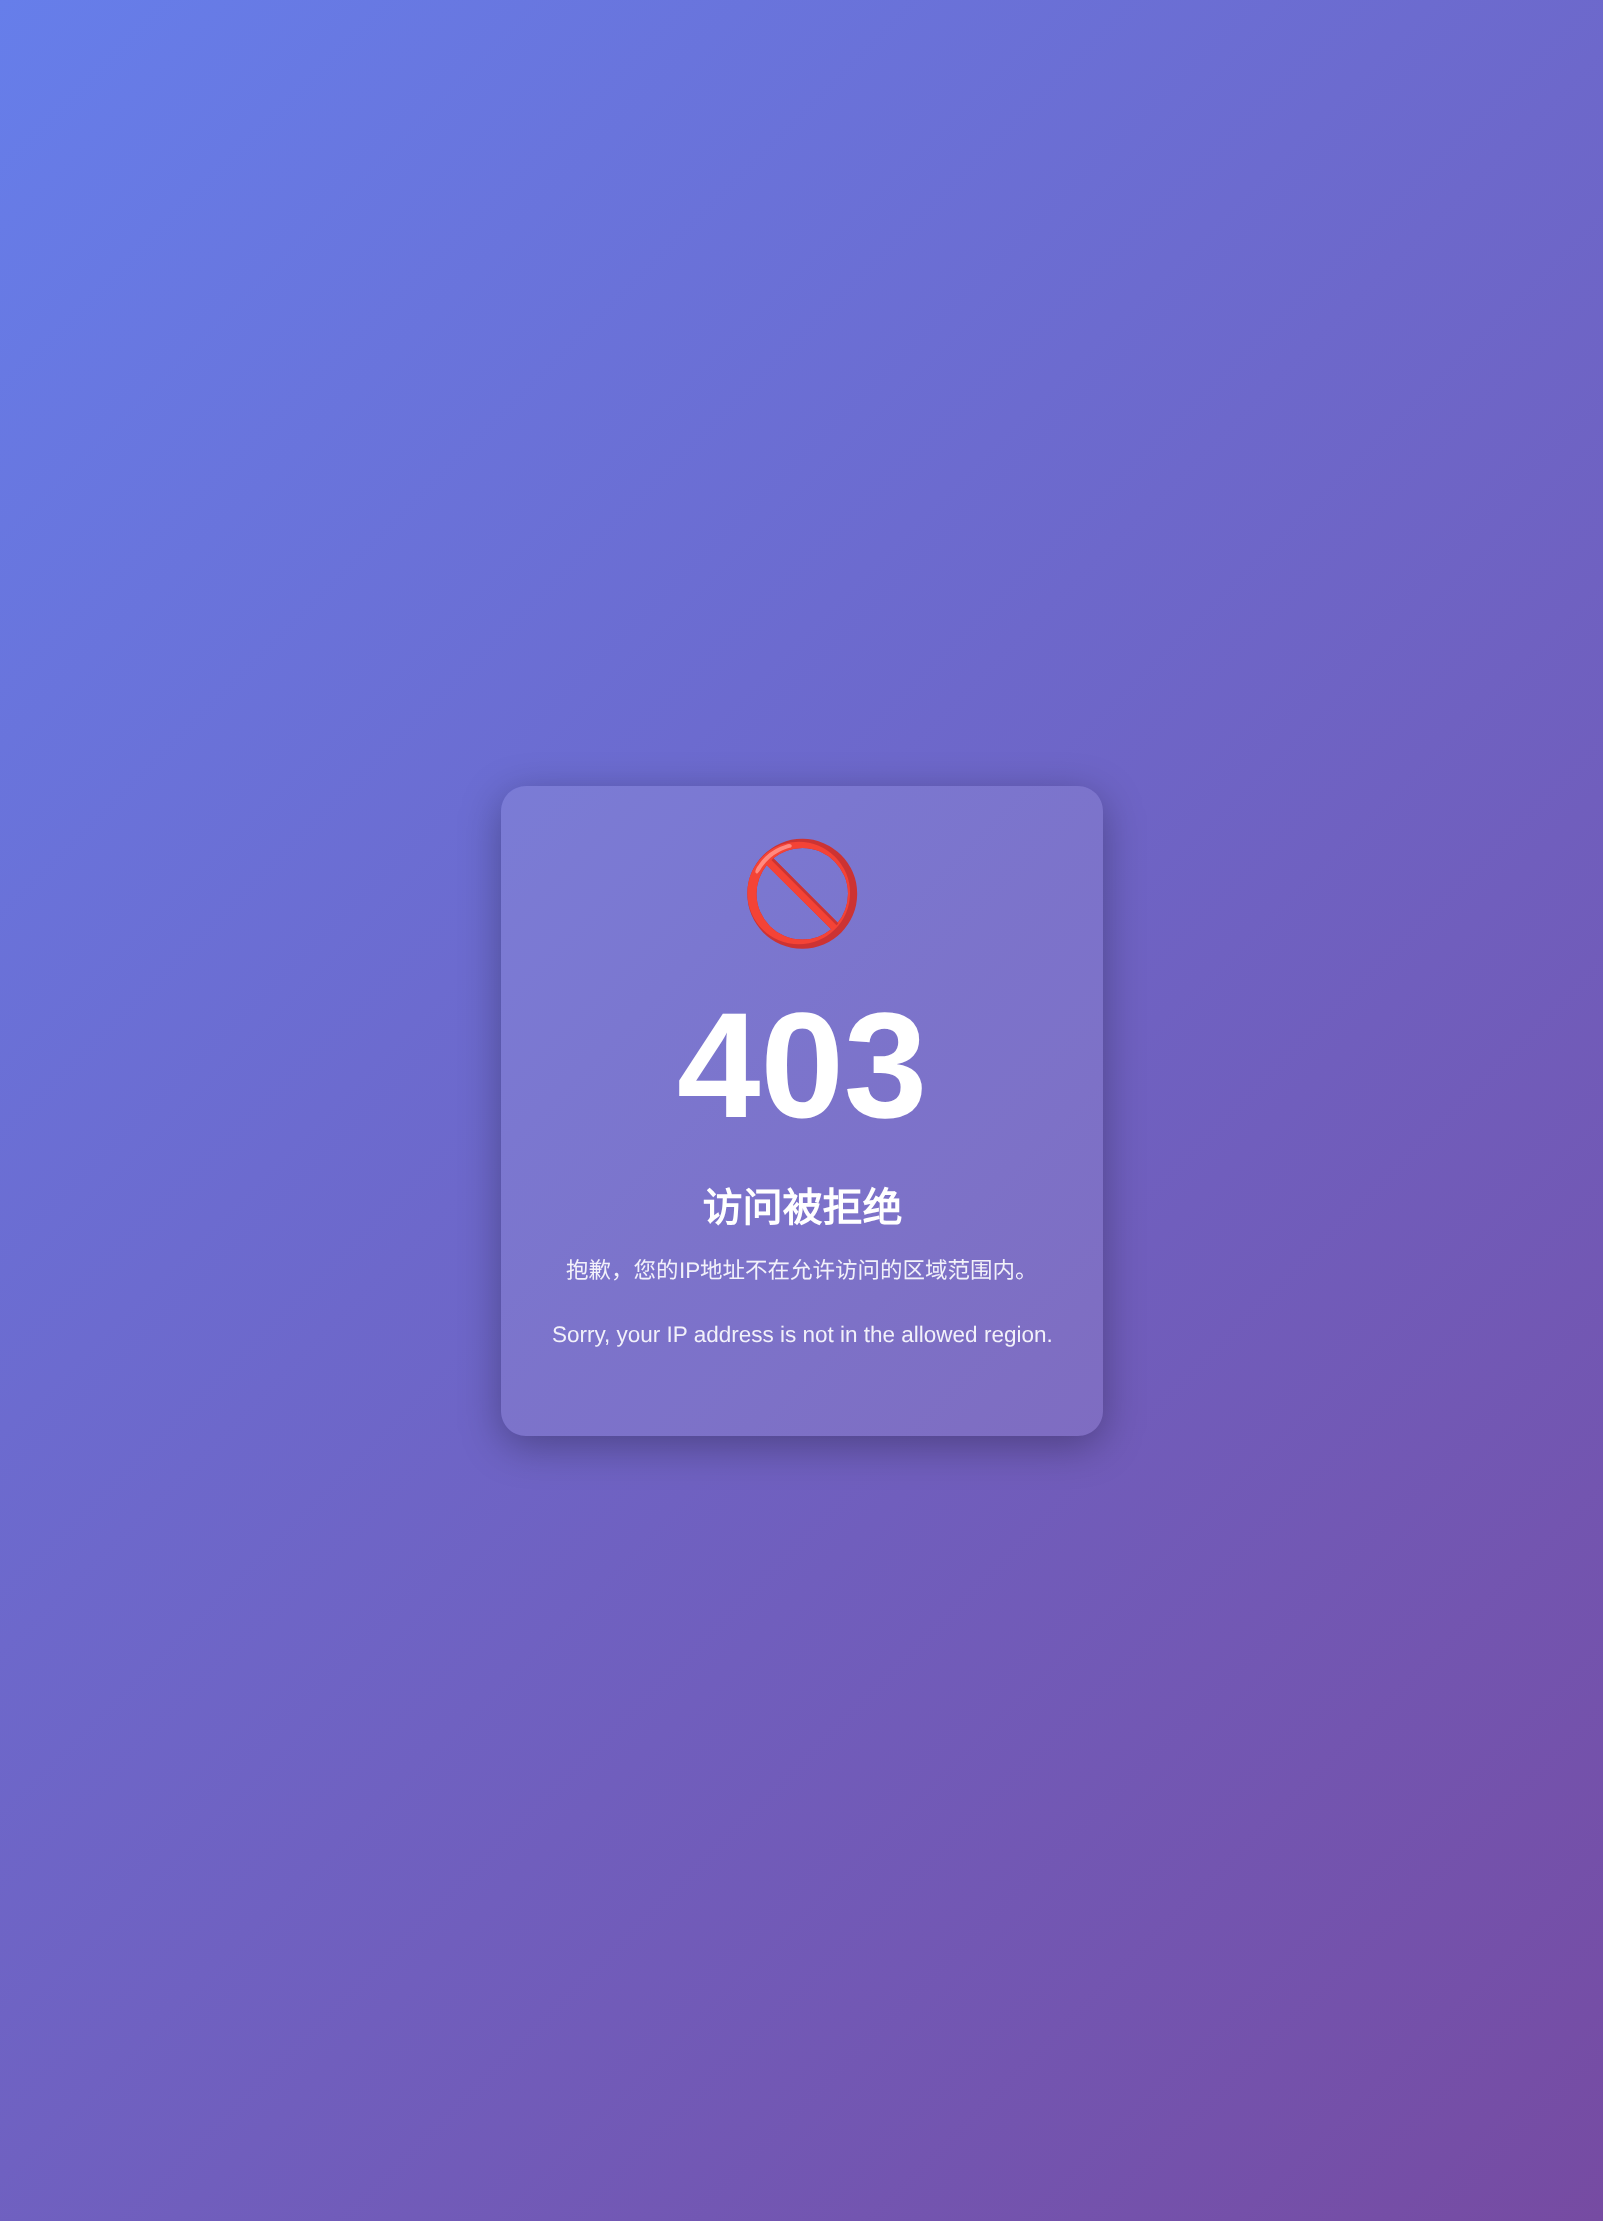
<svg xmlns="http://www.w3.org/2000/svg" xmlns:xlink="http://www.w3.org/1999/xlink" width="1603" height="2221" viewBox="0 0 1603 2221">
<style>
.cls-1{font:100px Noto Color Emoji;fill:#ffffff}
.cls-2{font:bold 150px Liberation Sans;fill:#ffffff}
.cls-3{font:bold 40px Noto Sans CJK SC;fill:#ffffff}
.cls-4{font:22.5px Noto Sans CJK SC;fill:#f2f1fa}
.cls-5{font:22.5px Liberation Sans;fill:#f2f1fa}
</style>
<defs>
<linearGradient id="g1" gradientUnits="userSpaceOnUse" x1="-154" y1="154" x2="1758" y2="2067"><stop offset="0" stop-color="#667eea"/><stop offset="1" stop-color="#764ba2"/></linearGradient>
<clipPath id="clip1"><path d="M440 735H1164V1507H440ZM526 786H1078C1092 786 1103 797 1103 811V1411C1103 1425 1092 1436 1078 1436H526C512 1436 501 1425 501 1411V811C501 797 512 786 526 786Z" clip-rule="evenodd"/></clipPath>
</defs>
<rect width="100%" height="100%" fill="#ffffff"/>
<rect fill="url(#g1)" x="0" y="0" width="1603" height="2221"/>
<g clip-path="url(#clip1)">
<rect fill="#000000" fill-opacity="0.3" filter="blur(20px)" x="501" y="796" width="602" height="650" rx="25"/>
</g>
<rect fill="#ffffff" fill-opacity="0.1" x="501" y="786" width="602" height="650" rx="25"/>
<text class="cls-1" x="740" y="928">🚫</text>
<text class="cls-2" x="677" y="1117">403</text>
<text class="cls-3" x="702" y="1222">访问被拒绝</text>
<text class="cls-4" x="566" y="1278">抱歉，您的</text>
<text class="cls-5" x="679" y="1278">IP</text>
<text class="cls-4" x="700" y="1278">地址不在允许访问的区域范围内。</text>
<text class="cls-5" x="552" y="1342">Sorry, your IP address is not in the allowed region.</text>
</svg>
